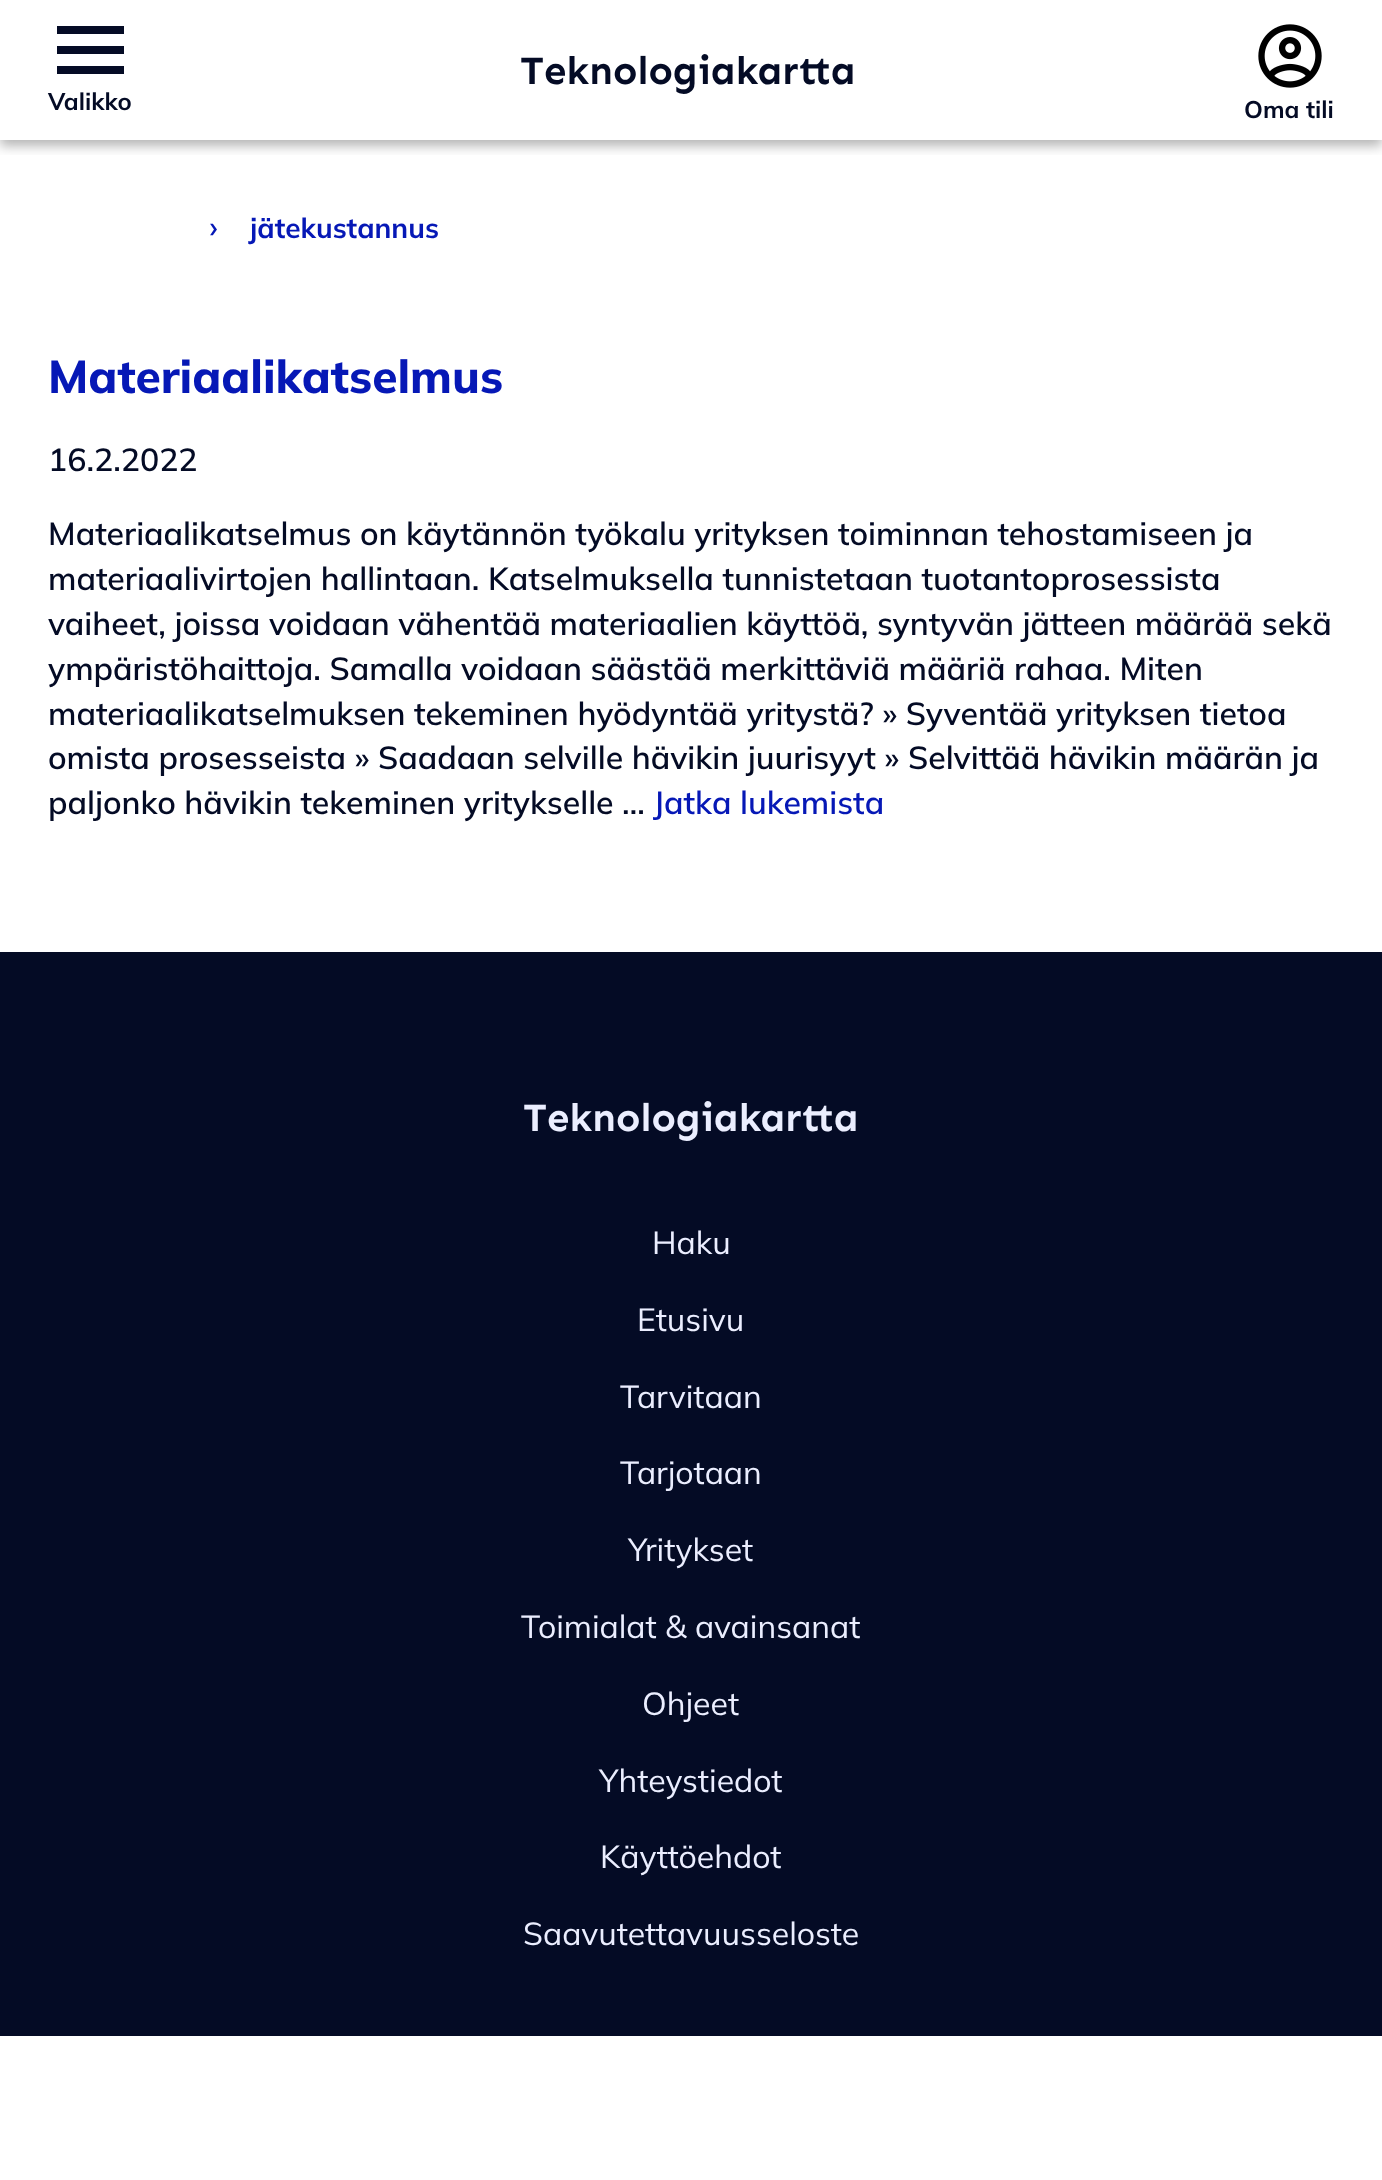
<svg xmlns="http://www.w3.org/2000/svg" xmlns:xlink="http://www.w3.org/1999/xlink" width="1382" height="2180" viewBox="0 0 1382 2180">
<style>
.cls-1{font:bold 40px Sen;fill:#040b25}
.cls-2{font:bold 24px Mulish;fill:#040b25}
.cls-3{font:600 32px Mulish;fill:#0618b6}
.cls-4{font:bold 28px Mulish;fill:#0618b6}
.cls-5{font:800 46px Mulish;fill:#0618b6}
.cls-6{font:600 32px Mulish;fill:#040b25}
.cls-7{font:bold 40px Sen;fill:#ebeeff}
.cls-8{font:32px Mulish;fill:#ebeeff}
</style>
<defs>
<clipPath id="clip1"><rect x="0" y="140" width="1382" height="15"/></clipPath>
</defs>
<rect width="100%" height="100%" fill="#ffffff"/>
<g clip-path="url(#clip1)">
<rect fill="#000000" fill-opacity="0.29" filter="blur(6px)" x="0" y="6" width="1382" height="140"/>
</g>
<rect fill="#040b25" x="57" y="26" width="67" height="8"/>
<rect fill="#040b25" x="57" y="46" width="67" height="8"/>
<rect fill="#040b25" x="57" y="66" width="67" height="8"/>
<image xlink:href="image0.png" x="1258" y="24" width="64" height="64"/>
<rect fill="#040b25" x="0" y="952" width="1382" height="1084"/>
<text class="cls-1" x="520" y="84">Teknologiakartta</text>
<text class="cls-2" x="48" y="110">Valikko</text>
<text class="cls-2" x="1244" y="118">Oma tili</text>
<text class="cls-3" x="209" y="238">›</text>
<text class="cls-4" x="250" y="238">jätekustannus</text>
<text class="cls-5" x="48" y="393">Materiaalikatselmus</text>
<text class="cls-6" x="48" y="471">16.2.2022</text>
<text class="cls-6"><tspan x="48" y="545">Materiaalikatselmus on käytännön työkalu yrityksen toiminnan tehostamiseen ja</tspan><tspan x="48" y="590">materiaalivirtojen hallintaan. Katselmuksella tunnistetaan tuotantoprosessista</tspan><tspan x="48" y="635">vaiheet, joissa voidaan vähentää materiaalien käyttöä, syntyvän jätteen määrää sekä</tspan><tspan x="48" y="680">ympäristöhaittoja. Samalla voidaan säästää merkittäviä määriä rahaa. Miten</tspan><tspan x="48" y="725">materiaalikatselmuksen tekeminen hyödyntää yritystä? » Syventää yrityksen tietoa</tspan><tspan x="48" y="769">omista prosesseista » Saadaan selville hävikin juurisyyt » Selvittää hävikin määrän ja</tspan><tspan x="48" y="814">paljonko hävikin tekeminen yritykselle …</tspan></text>
<text class="cls-3" x="653" y="814">Jatka lukemista</text>
<text class="cls-7" x="523" y="1131">Teknologiakartta</text>
<text class="cls-8" x="652" y="1254">Haku</text>
<text class="cls-8" x="637" y="1331">Etusivu</text>
<text class="cls-8" x="620" y="1408">Tarvitaan</text>
<text class="cls-8" x="620" y="1484">Tarjotaan</text>
<text class="cls-8" x="628" y="1561">Yritykset</text>
<text class="cls-8" x="521" y="1638">Toimialat &amp; avainsanat</text>
<text class="cls-8" x="642" y="1715">Ohjeet</text>
<text class="cls-8" x="599" y="1792">Yhteystiedot</text>
<text class="cls-8" x="600" y="1868">Käyttöehdot</text>
<text class="cls-8" x="523" y="1945">Saavutettavuusseloste</text>
</svg>
